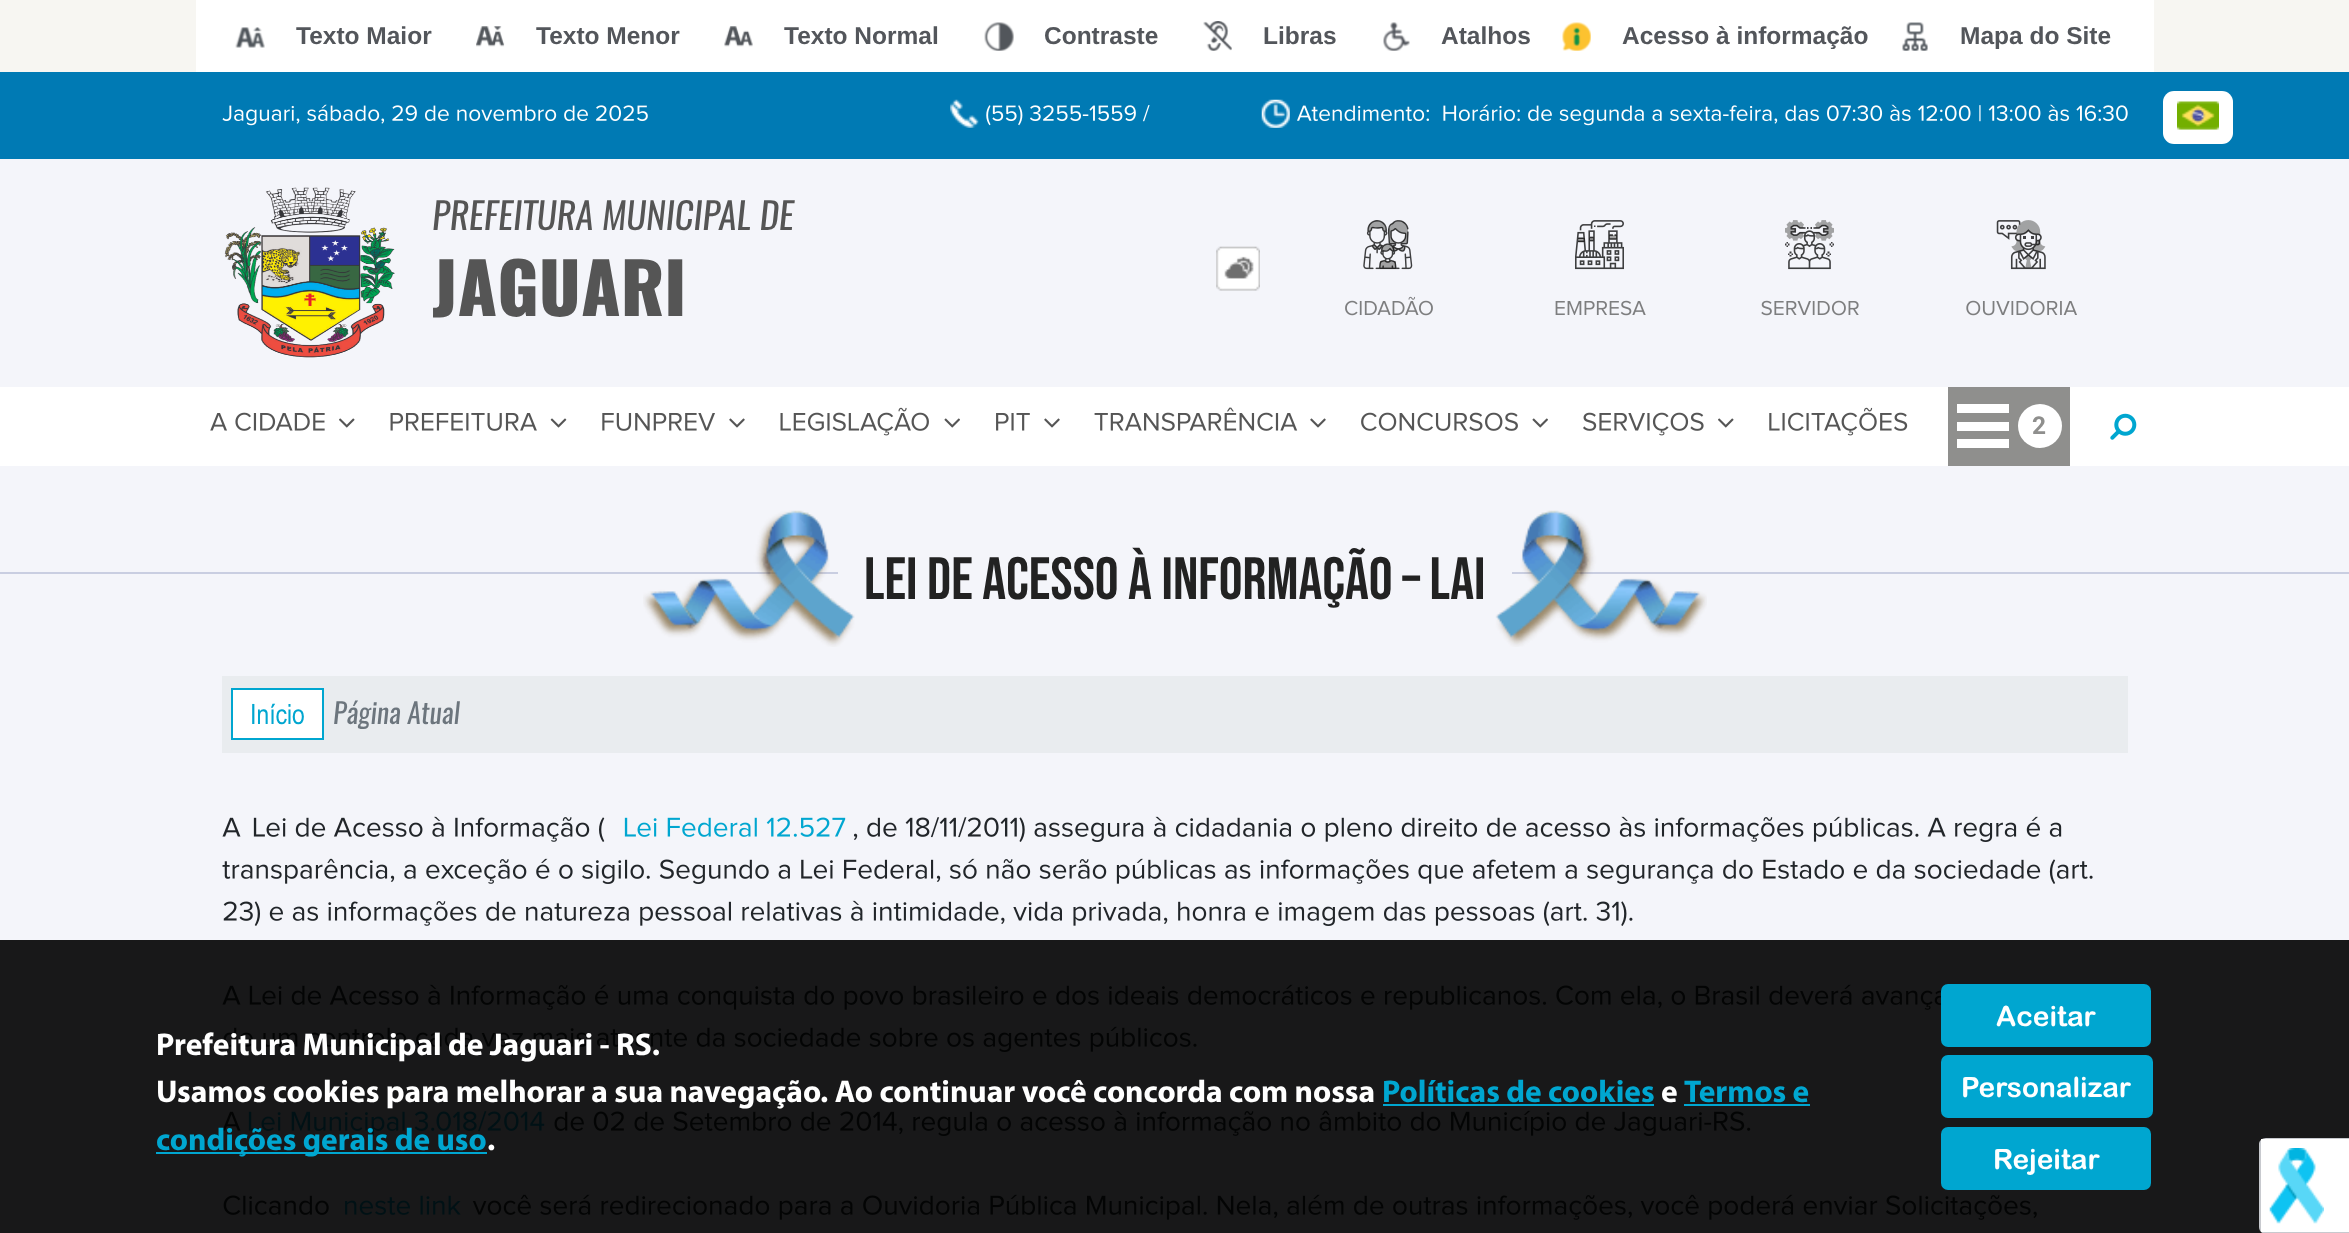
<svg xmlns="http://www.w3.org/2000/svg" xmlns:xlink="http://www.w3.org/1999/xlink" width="2349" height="1233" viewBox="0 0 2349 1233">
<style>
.cls-1{font:bold 24.5px Liberation Sans;fill:#53565b}
.cls-2{font:italic 36.75px Oswald;fill:#555555}
.cls-3{font:900 70px Oswald;fill:#555555}
.cls-4{font:bold 24.5px Roboto;fill:#8f8f8d}
.cls-5{font:59.5px Bebas Neue;fill:#222222}
.cls-6{font:28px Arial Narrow;fill:#00a6d0}
.cls-7{font:italic 28px Oswald;fill:#6c757d}
.cls-8{font:bold 31.5px Myriad;fill:#ffffff}
.cls-9{font:bold 31.5px Myriad;fill:#00a6d0}
.cls-10{font:bold 28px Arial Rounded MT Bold;fill:#ffffff}
</style>
<rect width="100%" height="100%" fill="#f7f6f2"/>
<rect fill="#ffffff" x="196" y="0" width="1958" height="72"/>
<image xlink:href="image0.png" x="235" y="27" width="30" height="21"/>
<image xlink:href="image1.png" x="476" y="26" width="29" height="21"/>
<image xlink:href="image2.png" x="724" y="26" width="29" height="21"/>
<image xlink:href="image3.png" x="984" y="22" width="30" height="29"/>
<image xlink:href="image4.png" x="1203" y="21" width="29" height="30"/>
<image xlink:href="image5.png" x="1383" y="22" width="27" height="29"/>
<image xlink:href="image6.png" x="1562" y="22" width="29" height="29"/>
<image xlink:href="image7.png" x="1902" y="22" width="26" height="29"/>
<rect fill="#007ab4" x="0" y="72" width="2349" height="87"/>
<image xlink:href="image8.png" x="222" y="104" width="426" height="22"/>
<image xlink:href="image9.png" x="950" y="99" width="29" height="29"/>
<image xlink:href="image10.png" x="986" y="105" width="164" height="21"/>
<image xlink:href="image11.png" x="1261" y="99" width="29" height="29"/>
<image xlink:href="image12.png" x="1297" y="104" width="831" height="22"/>
<rect fill="#ffffff" x="2163" y="91" width="70" height="53" rx="11"/>
<image xlink:href="image13.png" x="2177" y="101" width="42" height="29"/>
<rect fill="#f4f5fa" x="0" y="159" width="2349" height="228"/>
<image xlink:href="image14.png" x="224" y="187" width="171" height="171"/>
<image xlink:href="image15.png" x="1216" y="246" width="44" height="45"/>
<image xlink:href="image16.png" x="1216" y="246" width="44" height="45"/>
<image xlink:href="image18.png" x="1368" y="220" width="19" height="12"/>
<image xlink:href="image19.png" x="1388" y="220" width="20" height="24"/>
<image xlink:href="image20.png" x="1372" y="244" width="5" height="6"/>
<image xlink:href="image21.png" x="1377" y="244" width="6" height="6"/>
<image xlink:href="image24.png" x="1398" y="245" width="7" height="6"/>
<image xlink:href="image23.png" x="1391" y="245" width="8" height="6"/>
<image xlink:href="image22.png" x="1382" y="244" width="12" height="8"/>
<rect fill="#a2a2a3" x="1380" y="261" width="16" height="8"/>
<image xlink:href="image17.png" x="1363" y="220" width="50" height="50"/>
<image xlink:href="image25.png" x="1345" y="296" width="88" height="20"/>
<rect fill="#a2a2a3" x="1578" y="238" width="7" height="4"/>
<path fill="#a2a2a3" d="M1589 237.5H1594V240.5H1589Z"/>
<rect fill="#a2a2a3" x="1609" y="235" width="8" height="4"/>
<image xlink:href="image29.png" x="1606" y="250" width="6" height="5"/>
<image xlink:href="image30.png" x="1614" y="250" width="6" height="5"/>
<image xlink:href="image31.png" x="1606" y="256" width="6" height="6"/>
<image xlink:href="image32.png" x="1614" y="256" width="6" height="6"/>
<image xlink:href="image33.png" x="1579" y="260" width="6" height="6"/>
<image xlink:href="image34.png" x="1587" y="260" width="6" height="6"/>
<image xlink:href="image35.png" x="1595" y="260" width="6" height="6"/>
<image xlink:href="image28.png" x="1575" y="230" width="49" height="40"/>
<image xlink:href="image26.png" x="1579" y="220" width="45" height="11"/>
<path fill="#3d3d3f" d="M1594 225.5H1595.5V227H1594Z"/>
<image xlink:href="image27.png" x="1597" y="223" width="14" height="5"/>
<image xlink:href="image36.png" x="1555" y="300" width="91" height="16"/>
<image xlink:href="image37.png" x="1785" y="220" width="19" height="21"/>
<image xlink:href="image38.png" x="1815" y="220" width="19" height="21"/>
<image xlink:href="image39.png" x="1788" y="224" width="43" height="46"/>
<path fill="#3d3d3f" d="M1810.5 227H1812V229H1810.5ZM1807 227H1808.5V229H1807ZM1789.5 251.5H1791.5V253.5H1789.5Z"/>
<path fill="#3d3d3f" d="M1788 253.5H1789.5V255H1788ZM1789.5 255H1791.5V256.5H1789.5Z"/>
<path fill="#3d3d3f" d="M1791.5 253.5H1793V255H1791.5ZM1786.5 242H1788V243.5H1786.5Z"/>
<path fill="#3d3d3f" d="M1785 243.5H1786.5V245.5H1785Z"/>
<path fill="#3d3d3f" d="M1786.5 245.5H1788V247H1786.5ZM1788 243.5H1789.5V245.5H1788ZM1827.5 251.5H1829.5V253.5H1827.5Z"/>
<path fill="#3d3d3f" d="M1829.5 253.5H1831V255H1829.5ZM1827.5 255H1829.5V256.5H1827.5Z"/>
<path fill="#3d3d3f" d="M1826 253.5H1827.5V255H1826ZM1831 242H1832.5V243.5H1831Z"/>
<path fill="#3d3d3f" d="M1832.5 243.5H1834V245.5H1832.5Z"/>
<path fill="#3d3d3f" d="M1831 245.5H1832.5V247H1831ZM1829.5 243.5H1831V245.5H1829.5Z"/>
<image xlink:href="image40.png" x="1761" y="300" width="98" height="16"/>
<image xlink:href="image41.png" x="1996" y="220" width="25" height="20"/>
<image xlink:href="image45.png" x="2012" y="224" width="6" height="6"/>
<image xlink:href="image42.png" x="2016" y="220" width="25" height="16"/>
<image xlink:href="image43.png" x="1999" y="224" width="6" height="6"/>
<image xlink:href="image44.png" x="2006" y="224" width="5" height="6"/>
<image xlink:href="image47.png" x="2011" y="239" width="13" height="13"/>
<image xlink:href="image48.png" x="2033" y="239" width="13" height="13"/>
<image xlink:href="image49.png" x="2024" y="255" width="9" height="14"/>
<image xlink:href="image46.png" x="2010" y="229" width="36" height="41"/>
<rect fill="#3d3d3f" x="2023" y="236" width="3" height="3"/>
<rect fill="#424244" x="2031" y="236" width="3" height="3"/>
<image xlink:href="image50.png" x="1966" y="300" width="111" height="16"/>
<rect fill="#ffffff" x="0" y="387" width="2349" height="79"/>
<image xlink:href="image51.png" x="210" y="412" width="115" height="19"/>
<image xlink:href="image52.png" x="339" y="418" width="16" height="10"/>
<image xlink:href="image53.png" x="390" y="413" width="147" height="18"/>
<image xlink:href="image54.png" x="550" y="418" width="17" height="10"/>
<image xlink:href="image55.png" x="602" y="413" width="113" height="18"/>
<image xlink:href="image56.png" x="729" y="418" width="16" height="10"/>
<image xlink:href="image57.png" x="780" y="407" width="149" height="29"/>
<image xlink:href="image58.png" x="944" y="418" width="16" height="10"/>
<image xlink:href="image59.png" x="996" y="413" width="34" height="18"/>
<image xlink:href="image56.png" x="1044" y="418" width="16" height="10"/>
<image xlink:href="image60.png" x="1094" y="407" width="204" height="24"/>
<image xlink:href="image56.png" x="1310" y="418" width="16" height="10"/>
<image xlink:href="image61.png" x="1361" y="412" width="157" height="19"/>
<image xlink:href="image58.png" x="1532" y="418" width="16" height="10"/>
<image xlink:href="image62.png" x="1583" y="412" width="121" height="24"/>
<image xlink:href="image52.png" x="1718" y="418" width="16" height="10"/>
<image xlink:href="image63.png" x="1769" y="407" width="139" height="29"/>
<rect fill="#8f8f8d" x="1948" y="387" width="122" height="79"/>
<rect fill="#ffffff" x="1957" y="422" width="52" height="9"/>
<rect fill="#ffffff" x="1957" y="404" width="52" height="9"/>
<rect fill="#ffffff" x="1957" y="439" width="52" height="9"/>
<circle fill="#ffffff" cx="2040" cy="426" r="22"/>
<image xlink:href="image64.png" x="2110" y="413" width="27" height="27"/>
<rect fill="#f4f5fa" x="0" y="466" width="2349" height="474"/>
<rect fill="#181819" x="0" y="940" width="2349" height="293"/>
<rect fill="#c9cee1" x="0" y="572" width="838" height="2"/>
<image xlink:href="image65.png" x="643" y="510" width="212" height="137"/>
<rect fill="#c9cee1" x="1512" y="572" width="837" height="2"/>
<image xlink:href="image66.png" x="1495" y="510" width="212" height="137"/>
<rect fill="#e9ecef" x="222" y="676" width="1906" height="77"/>
<rect fill="#ffffff" stroke="#00a6d0" stroke-width="2" x="232" y="689" width="91" height="50"/>
<image xlink:href="image67.png" x="222" y="817" width="19" height="20"/>
<image xlink:href="image68.png" x="253" y="816" width="352" height="26"/>
<image xlink:href="image69.png" x="624" y="817" width="222" height="20"/>
<image xlink:href="image70.png" x="853" y="816" width="1209" height="26"/>
<image xlink:href="image71.png" x="222" y="858" width="1871" height="26"/>
<image xlink:href="image72.png" x="223" y="900" width="1410" height="26"/>
<image xlink:href="image73.png" x="222" y="984" width="1720" height="26"/>
<image xlink:href="image74.png" x="223" y="1026" width="974" height="26"/>
<image xlink:href="image75.png" x="222" y="1111" width="19" height="20"/>
<image xlink:href="image76.png" x="248" y="1111" width="297" height="25"/>
<image xlink:href="image77.png" x="554" y="1110" width="1197" height="26"/>
<image xlink:href="image78.png" x="223" y="1195" width="106" height="20"/>
<image xlink:href="image79.png" x="345" y="1195" width="116" height="20"/>
<image xlink:href="image80.png" x="472" y="1194" width="1565" height="26"/>
<rect fill="#00a6d0" x="1383" y="1104" width="271" height="2"/>
<rect fill="#00a6d0" x="1684" y="1104" width="126" height="2"/>
<rect fill="#00a6d0" x="156" y="1152" width="331" height="2"/>
<rect fill="#00a6d0" x="1941" y="984" width="210" height="63" rx="7"/>
<rect fill="#00a6d0" x="1941" y="1055" width="212" height="63" rx="7"/>
<rect fill="#00a6d0" x="1941" y="1127" width="210" height="63" rx="7"/>
<path fill="#c7c9ce" fill-rule="evenodd" d="M2266 1138H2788V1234H2266C2262 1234 2259 1231 2259 1227V1144C2259 1141 2262 1138 2266 1138ZM2266 1139H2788V1232H2266C2263 1232 2261 1230 2261 1227V1144C2261 1142 2263 1139 2266 1139Z"/>
<rect fill="#ffffff" x="2261" y="1139" width="88" height="93"/>
<image xlink:href="image81.png" x="2269" y="1148" width="55" height="76"/>
<text class="cls-1" x="296" y="44">Texto Maior</text>
<text class="cls-1" x="536" y="44">Texto Menor</text>
<text class="cls-1" x="784" y="44">Texto Normal</text>
<text class="cls-1" x="1044" y="44">Contraste</text>
<text class="cls-1" x="1263" y="44">Libras</text>
<text class="cls-1" x="1441" y="44">Atalhos</text>
<text class="cls-1" x="1622" y="44">Acesso à informação</text>
<text class="cls-1" x="1960" y="44">Mapa do Site</text>
<text class="cls-2" x="432" y="230">PREFEITURA MUNICIPAL DE</text>
<text class="cls-3" x="432" y="316">JAGUARI</text>
<text class="cls-4" x="2032" y="434">2</text>
<text class="cls-5" x="864" y="599">Lei de Acesso à Informação – LAI</text>
<text class="cls-6" x="250" y="724">Início</text>
<text class="cls-7" x="333" y="724">Página Atual</text>
<text class="cls-8"><tspan x="156" y="1055">Prefeitura Municipal de Jaguari - RS.</tspan><tspan x="156" y="1102">Usamos cookies para melhorar a sua navegação. Ao continuar você concorda com nossa</tspan></text>
<text class="cls-9" x="1382" y="1102">Políticas de cookies</text>
<text class="cls-8" x="1661" y="1102">e</text>
<text class="cls-9" x="1684" y="1102">Termos e</text>
<text class="cls-9" x="156" y="1150">condições gerais de uso</text>
<text class="cls-8" x="487" y="1150">.</text>
<text class="cls-10" x="1996" y="1026">Aceitar</text>
<text class="cls-10" x="1961" y="1097">Personalizar</text>
<text class="cls-10" x="1993" y="1169">Rejeitar</text>
</svg>
